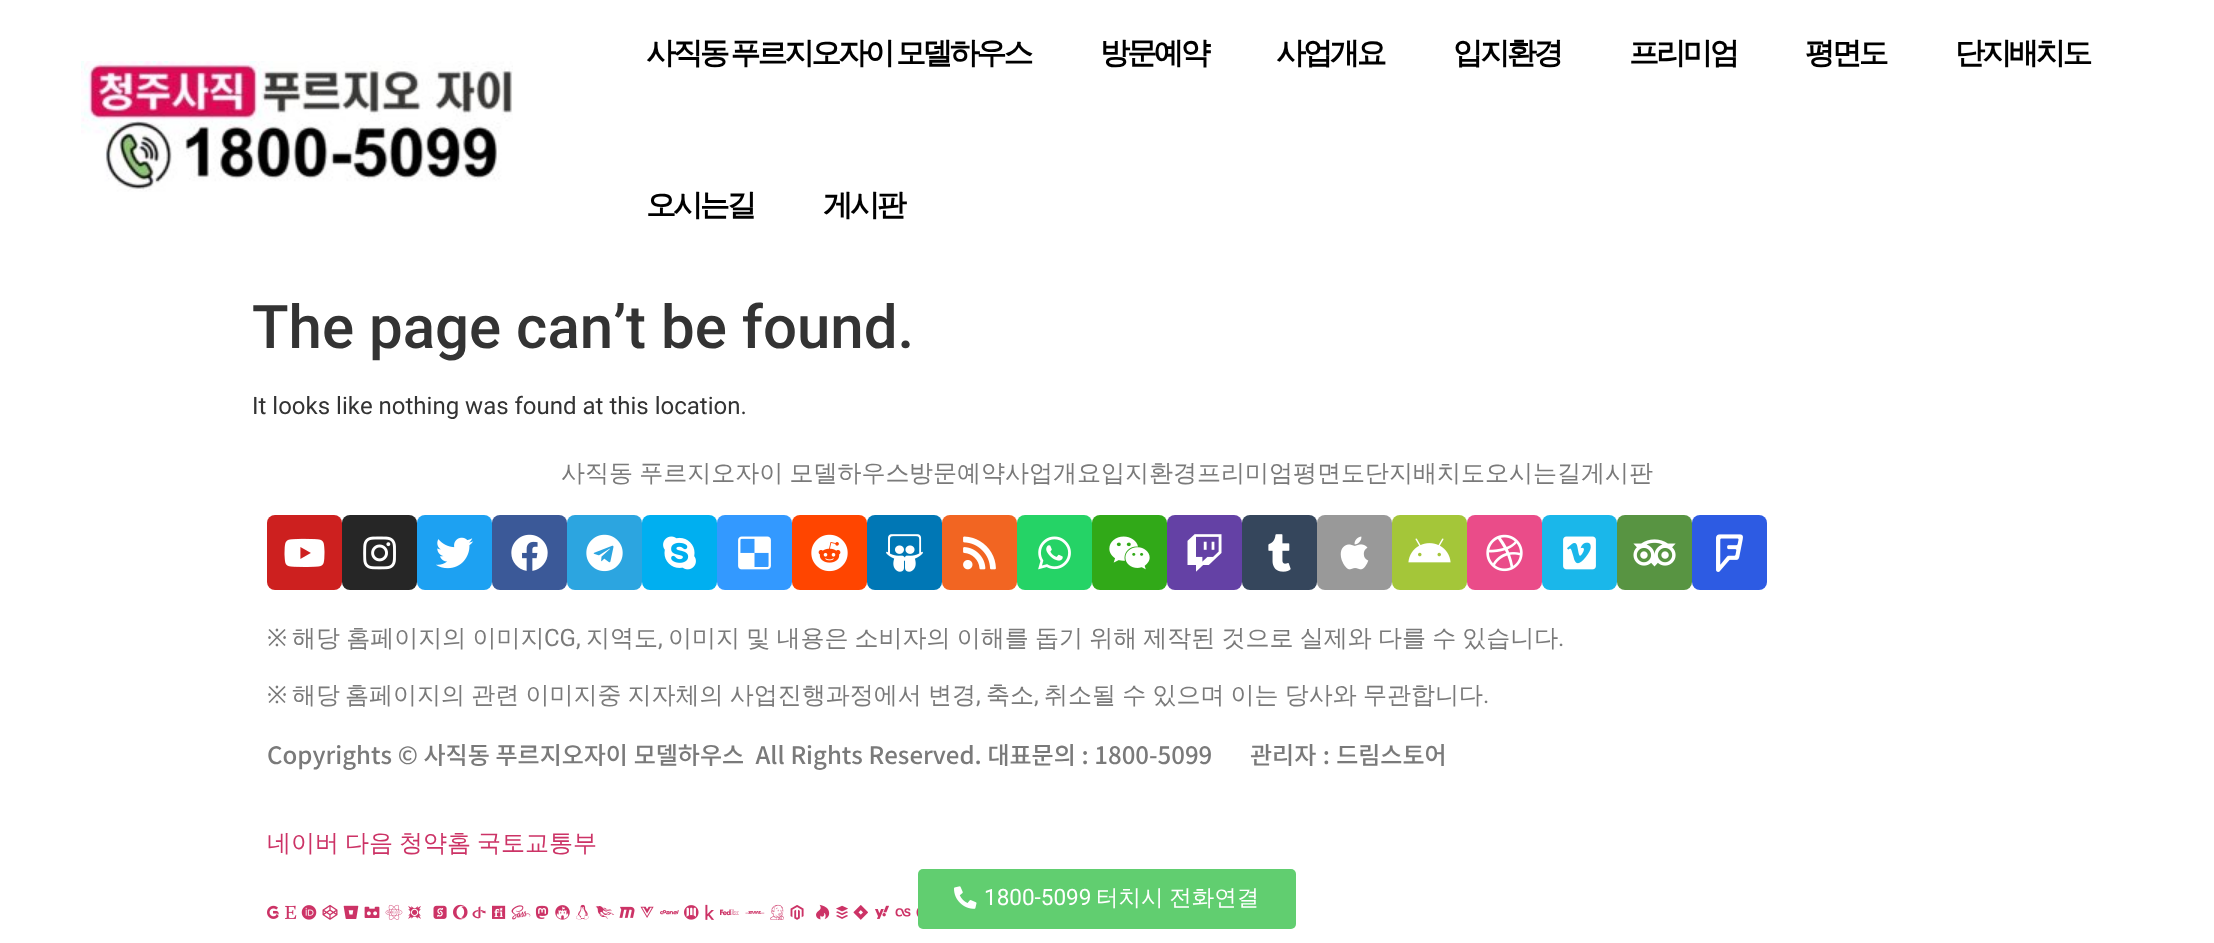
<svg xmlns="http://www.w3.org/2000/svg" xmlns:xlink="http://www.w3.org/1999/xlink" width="2214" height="943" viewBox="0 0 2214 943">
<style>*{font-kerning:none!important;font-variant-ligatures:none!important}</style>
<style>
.cls-1{font:bold 30px WenQuanYi Zen Hei;letter-spacing:-3.1px;fill:#000000}
.cls-2{font:500 60px Roboto;fill:#333333}
.cls-3{font:24px Roboto;fill:#333333}
.cls-4{font:500 24px WenQuanYi Zen Hei;fill:#7a7a7a}
.cls-5{font:24px Noto Sans;fill:#7a7a7a}
.cls-6{font:24px Roboto;fill:#7a7a7a}
.cls-7{font:500 24px Noto Sans KR;fill:#7a7a7a}
.cls-8{font:500 24px WenQuanYi Zen Hei;fill:#cc3366}
.cls-9{font:22.5px Roboto;fill:#ffffff}
.cls-10{font:500 22.5px WenQuanYi Zen Hei;fill:#ffffff}
</style>
<rect width="100%" height="100%" fill="#ffffff"/>
<image xlink:href="image0.png" x="81" y="61" width="432" height="131"/>
<rect fill="#cd201f" x="267" y="515" width="75" height="75" rx="8"/>
<image xlink:href="image1.png" x="284" y="538" width="41" height="29"/>
<rect fill="#262626" x="342" y="515" width="75" height="75" rx="8"/>
<image xlink:href="image2.png" x="363" y="536" width="33" height="34"/>
<rect fill="#1da1f2" x="417" y="515" width="75" height="75" rx="8"/>
<image xlink:href="image3.png" x="436" y="537" width="38" height="32"/>
<rect fill="#3b5998" x="492" y="515" width="75" height="75" rx="8"/>
<image xlink:href="image4.png" x="511" y="534" width="37" height="37"/>
<rect fill="#2ca5e0" x="567" y="515" width="75" height="75" rx="8"/>
<image xlink:href="image5.png" x="586" y="534" width="37" height="38"/>
<rect fill="#00aff0" x="642" y="515" width="75" height="75" rx="8"/>
<image xlink:href="image6.png" x="663" y="536" width="33" height="34"/>
<rect fill="#3399ff" x="717" y="515" width="75" height="75" rx="8"/>
<image xlink:href="image7.png" x="738" y="536" width="33" height="34"/>
<rect fill="#ff4500" x="792" y="515" width="75" height="75" rx="8"/>
<image xlink:href="image8.png" x="811" y="534" width="37" height="38"/>
<rect fill="#0077b5" x="867" y="515" width="75" height="75" rx="8"/>
<image xlink:href="image9.png" x="886" y="534" width="37" height="38"/>
<rect fill="#f26522" x="942" y="515" width="75" height="75" rx="8"/>
<image xlink:href="image10.png" x="963" y="536" width="33" height="34"/>
<rect fill="#25d366" x="1017" y="515" width="75" height="75" rx="8"/>
<image xlink:href="image11.png" x="1038" y="536" width="33" height="34"/>
<rect fill="#31a918" x="1092" y="515" width="75" height="75" rx="8"/>
<image xlink:href="image12.png" x="1109" y="536" width="41" height="34"/>
<rect fill="#6441a5" x="1167" y="515" width="75" height="75" rx="8"/>
<image xlink:href="image13.png" x="1187" y="534" width="35" height="38"/>
<rect fill="#35465c" x="1242" y="515" width="75" height="75" rx="8"/>
<image xlink:href="image14.png" x="1268" y="534" width="23" height="38"/>
<rect fill="#999999" x="1317" y="515" width="75" height="75" rx="8"/>
<image xlink:href="image15.png" x="1340" y="536" width="29" height="34"/>
<rect fill="#a4c639" x="1392" y="515" width="75" height="75" rx="8"/>
<image xlink:href="image16.png" x="1408" y="538" width="43" height="25"/>
<rect fill="#ea4c89" x="1467" y="515" width="75" height="75" rx="8"/>
<image xlink:href="image17.png" x="1486" y="534" width="37" height="38"/>
<rect fill="#1ab7ea" x="1542" y="515" width="75" height="75" rx="8"/>
<image xlink:href="image18.png" x="1563" y="536" width="33" height="34"/>
<rect fill="#589442" x="1617" y="515" width="75" height="75" rx="8"/>
<image xlink:href="image19.png" x="1633" y="539" width="43" height="28"/>
<rect fill="#2d5be3" x="1692" y="515" width="75" height="75" rx="8"/>
<image xlink:href="image20.png" x="1716" y="534" width="27" height="38"/>
<image xlink:href="image21.png" x="267" y="905" width="12" height="14"/>
<image xlink:href="image22.png" x="285" y="905" width="12" height="14"/>
<image xlink:href="image23.png" x="301" y="905" width="16" height="15"/>
<image xlink:href="image24.png" x="322" y="904" width="16" height="16"/>
<image xlink:href="image25.png" x="343" y="905" width="16" height="14"/>
<image xlink:href="image26.png" x="364" y="906" width="16" height="12"/>
<image xlink:href="image27.png" x="385" y="904" width="18" height="16"/>
<image xlink:href="image28.png" x="408" y="906" width="13" height="13"/>
<image xlink:href="image29.png" x="433" y="905" width="14" height="14"/>
<image xlink:href="image30.png" x="453" y="904" width="15" height="16"/>
<image xlink:href="image31.png" x="472" y="906" width="14" height="13"/>
<image xlink:href="image32.png" x="492" y="905" width="14" height="14"/>
<image xlink:href="image33.png" x="511" y="905" width="20" height="15"/>
<image xlink:href="image34.png" x="535" y="905" width="14" height="14"/>
<image xlink:href="image35.png" x="555" y="905" width="15" height="15"/>
<image xlink:href="image36.png" x="576" y="904" width="13" height="16"/>
<image xlink:href="image37.png" x="595" y="906" width="20" height="13"/>
<image xlink:href="image38.png" x="619" y="906" width="16" height="12"/>
<image xlink:href="image39.png" x="640" y="906" width="14" height="12"/>
<image xlink:href="image40.png" x="660" y="910" width="19" height="5"/>
<image xlink:href="image41.png" x="684" y="905" width="15" height="15"/>
<image xlink:href="image42.png" x="705" y="904" width="9" height="16"/>
<image xlink:href="image43.png" x="720" y="909" width="19" height="7"/>
<image xlink:href="image44.png" x="745" y="911" width="20" height="3"/>
<image xlink:href="image45.png" x="770" y="904" width="14" height="16"/>
<image xlink:href="image46.png" x="790" y="905" width="14" height="15"/>
<image xlink:href="image47.png" x="816" y="904" width="14" height="16"/>
<image xlink:href="image48.png" x="836" y="905" width="12" height="14"/>
<image xlink:href="image49.png" x="853" y="905" width="15" height="15"/>
<image xlink:href="image50.png" x="875" y="905" width="14" height="14"/>
<image xlink:href="image51.png" x="895" y="908" width="16" height="9"/>
<image xlink:href="image52.png" x="916" y="908" width="2" height="9"/>
<rect fill="#61ce70" x="918" y="869" width="378" height="60" rx="5"/>
<image xlink:href="image53.png" x="954" y="886" width="23" height="23"/>
<text class="cls-1" x="646" y="63" word-spacing="-2">사직동 푸르지오자이 모델하우스</text>
<text class="cls-1" x="1100" y="63">방문예약</text>
<text class="cls-1" x="1276" y="63">사업개요</text>
<text class="cls-1" x="1453" y="63">입지환경</text>
<text class="cls-1" x="1629" y="63">프리미엄</text>
<text class="cls-1" x="1805" y="63">평면도</text>
<text class="cls-1" x="1955" y="63">단지배치도</text>
<text class="cls-1" x="646" y="215">오시는길</text>
<text class="cls-1" x="823" y="215">게시판</text>
<text class="cls-2" x="252" y="348">The page can’t be found.</text>
<text class="cls-3" x="252" y="414">It looks like nothing was found at this location.</text>
<text class="cls-4" x="561" y="481" word-spacing="-1">사직동 푸르지오자이 모델하우스</text>
<text class="cls-4" x="909" y="481">방문예약사업개요입지환경프리미엄평면도단지배치도오시는길게시판</text>
<text class="cls-5" x="267" y="646">※</text>
<text class="cls-4" x="292" y="646" word-spacing="-1">해당 홈페이지의 이미지</text>
<text class="cls-6" x="544" y="646">CG,</text>
<text class="cls-4" x="586" y="646">지역도</text>
<text class="cls-6" x="658" y="646">,</text>
<text class="cls-4" x="668" y="646" word-spacing="-1">이미지 및 내용은 소비자의 이해를 돕기 위해 제작된 것으로 실제와 다를 수 있습니다</text>
<text class="cls-6" x="1558" y="646">.</text>
<text class="cls-5" x="267" y="703">※</text>
<text class="cls-4" x="292" y="703">해당</text>
<text class="cls-4" x="345" y="703" word-spacing="-1">홈페이지의 관련 이미지중 지자체의 사업진행과정에서 변경</text>
<text class="cls-6" x="976" y="703">,</text>
<text class="cls-4" x="986" y="703">축소</text>
<text class="cls-6" x="1034" y="703">,</text>
<text class="cls-4" x="1044" y="703" word-spacing="-1">취소될 수 있으며 이는 당사와 무관합니다</text>
<text class="cls-6" x="1483" y="703">.</text>
<text class="cls-7" xml:space="preserve" x="267" y="764" word-spacing="0.3">Copyrights © 사직동 푸르지오자이 모델하우스  All Rights Reserved. 대표문의 : 1800-5099</text>
<text class="cls-7" x="1250" y="764" word-spacing="1">관리자 : 드림스토어</text>
<text class="cls-8" x="267" y="851">네이버</text>
<text class="cls-8" x="345" y="851">다음</text>
<text class="cls-8" x="399" y="851">청약홈</text>
<text class="cls-8" x="477" y="851">국토교통부</text>
<text class="cls-9" x="984" y="905">1800-5099</text>
<text class="cls-10" x="1096" y="905" word-spacing="-1">터치시 전화연결</text>
</svg>
